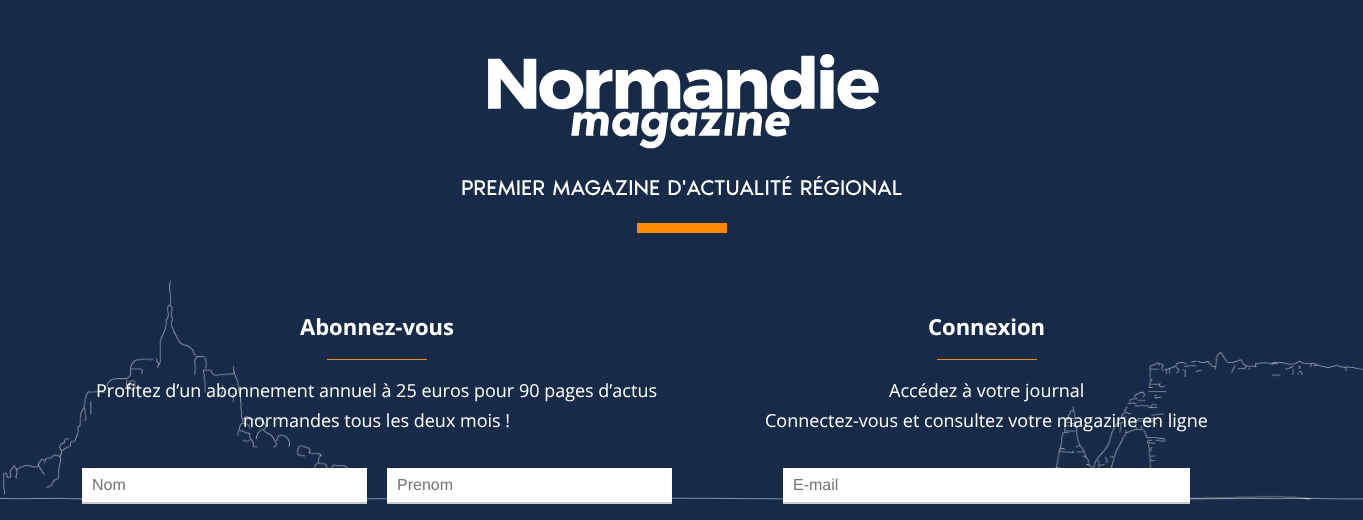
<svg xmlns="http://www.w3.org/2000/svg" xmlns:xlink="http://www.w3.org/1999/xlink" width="1363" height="520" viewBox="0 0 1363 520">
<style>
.cls-1{font:22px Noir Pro;fill:#ffffff}
.cls-2{font:bold 22px Open Sans;fill:#ffffff}
.cls-3{font:18px Open Sans;fill:#ffffff}
.cls-4{font:16px Liberation Sans;fill:#757575}
</style>
<rect width="100%" height="100%" fill="#172b48"/>
<image xlink:href="image0.png" x="488" y="54" width="391" height="95"/>
<rect fill="#ff8c00" x="637" y="223" width="90" height="10"/>
<image xlink:href="image2.png" x="3" y="280" width="346" height="215"/>
<rect fill="#ff8c00" x="327" y="359" width="100" height="1"/>
<image xlink:href="image1.png" x="0" y="497" width="1363" height="3"/>
<rect fill="#ffffff" x="82" y="468" width="285" height="34"/>
<rect fill="#cccccc" x="82" y="502" width="285" height="2"/>
<rect fill="#ffffff" x="387" y="468" width="285" height="34"/>
<rect fill="#cccccc" x="387" y="502" width="285" height="2"/>
<rect fill="#ff8c00" x="937" y="359" width="100" height="1"/>
<image xlink:href="image3.png" x="1055" y="352" width="308" height="148"/>
<rect fill="#ffffff" x="783" y="468" width="407" height="34"/>
<rect fill="#cccccc" x="783" y="502" width="407" height="2"/>
<text class="cls-1" x="461" y="195">PREMIER MAGAZINE D'ACTUALITÉ RÉGIONAL</text>
<text class="cls-2" x="300" y="335">Abonnez-vous</text>
<text class="cls-3" x="96" y="397">Profitez d’un abonnement annuel à 25 euros pour 90 pages d’actus</text>
<text class="cls-3" x="243" y="427">normandes tous les deux mois !</text>
<text class="cls-4" x="92" y="490">Nom</text>
<text class="cls-4" x="397" y="490">Prenom</text>
<text class="cls-2" x="928" y="335">Connexion</text>
<text class="cls-3" x="889" y="397">Accédez à votre journal</text>
<text class="cls-3" x="765" y="427">Connectez-vous et consultez votre magazine en ligne</text>
<text class="cls-4" x="793" y="490">E-mail</text>
</svg>
